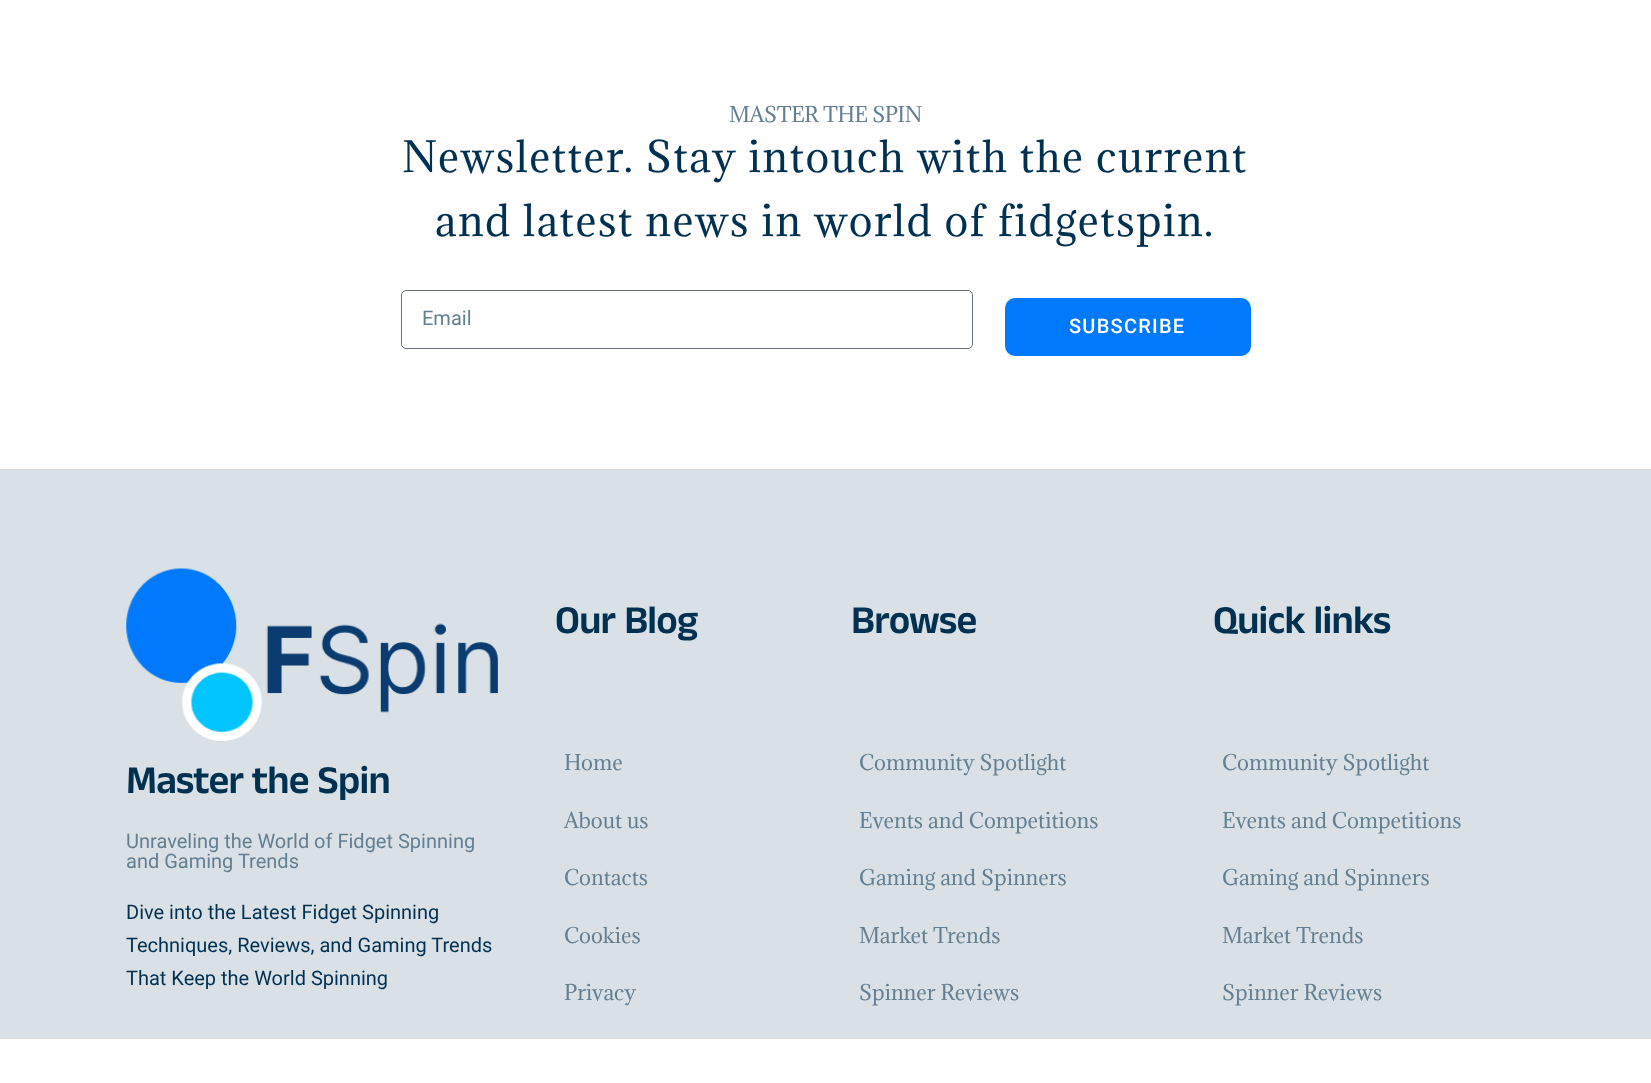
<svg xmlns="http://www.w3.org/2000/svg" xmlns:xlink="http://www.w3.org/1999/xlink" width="1651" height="1083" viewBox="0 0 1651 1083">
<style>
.cls-1{font:20px Adamina;letter-spacing:-0.4px;fill:#637f92}
.cls-2{font:40px Adamina;letter-spacing:1.6px;fill:#003151}
.cls-3{font:20px Roboto;fill:#637f92}
.cls-4{font:500 20px Roboto;letter-spacing:1.25px;fill:#ffffff}
.cls-5{font:600 40px Anek Kannada;letter-spacing:-0.75px;fill:#003151}
.cls-6{font:20px Roboto;fill:#003151}
.cls-7{font:20px Adamina;fill:#637f92}
</style>
<rect width="100%" height="100%" fill="#ffffff"/>
<rect fill="none" stroke="#69727d" x="401.5" y="290.5" width="571" height="58" rx="4.5"/>
<rect fill="#0079fc" x="1005" y="298" width="246" height="58" rx="10"/>
<rect fill="#dae1e6" x="0" y="469" width="1651" height="570"/>
<image xlink:href="image0.png" x="126" y="568" width="372" height="173"/>
<text class="cls-1" x="729" y="122">MASTER THE SPIN</text>
<text class="cls-2" x="402" y="172">Newsletter. Stay intouch with the current</text>
<text class="cls-2" x="435" y="236">and latest news in world of fidgetspin.</text>
<text class="cls-3" x="422" y="325">Email</text>
<text class="cls-4" x="1069" y="333">SUBSCRIBE</text>
<text class="cls-5" x="126" y="793">Master the Spin</text>
<text class="cls-3"><tspan x="126" y="848">Unraveling the World of Fidget Spinning</tspan><tspan x="126" y="868">and Gaming Trends</tspan></text>
<text class="cls-6"><tspan x="126" y="919">Dive into the Latest Fidget Spinning</tspan><tspan x="126" y="952">Techniques, Reviews, and Gaming Trends</tspan><tspan x="126" y="985">That Keep the World Spinning</tspan></text>
<text class="cls-5" x="555" y="633">Our Blog</text>
<text class="cls-7" x="564" y="770">Home</text>
<text class="cls-7" x="564" y="828">About us</text>
<text class="cls-7" x="564" y="885">Contacts</text>
<text class="cls-7" x="564" y="943">Cookies</text>
<text class="cls-7" x="564" y="1000">Privacy</text>
<text class="cls-5" x="851" y="633">Browse</text>
<text class="cls-7" x="859" y="770">Community Spotlight</text>
<text class="cls-7" x="859" y="828">Events and Competitions</text>
<text class="cls-7" x="859" y="885">Gaming and Spinners</text>
<text class="cls-7" x="859" y="943">Market Trends</text>
<text class="cls-7" x="859" y="1000">Spinner Reviews</text>
<text class="cls-5" x="1213" y="633">Quick links</text>
<text class="cls-7" x="1222" y="770">Community Spotlight</text>
<text class="cls-7" x="1222" y="828">Events and Competitions</text>
<text class="cls-7" x="1222" y="885">Gaming and Spinners</text>
<text class="cls-7" x="1222" y="943">Market Trends</text>
<text class="cls-7" x="1222" y="1000">Spinner Reviews</text>
</svg>
